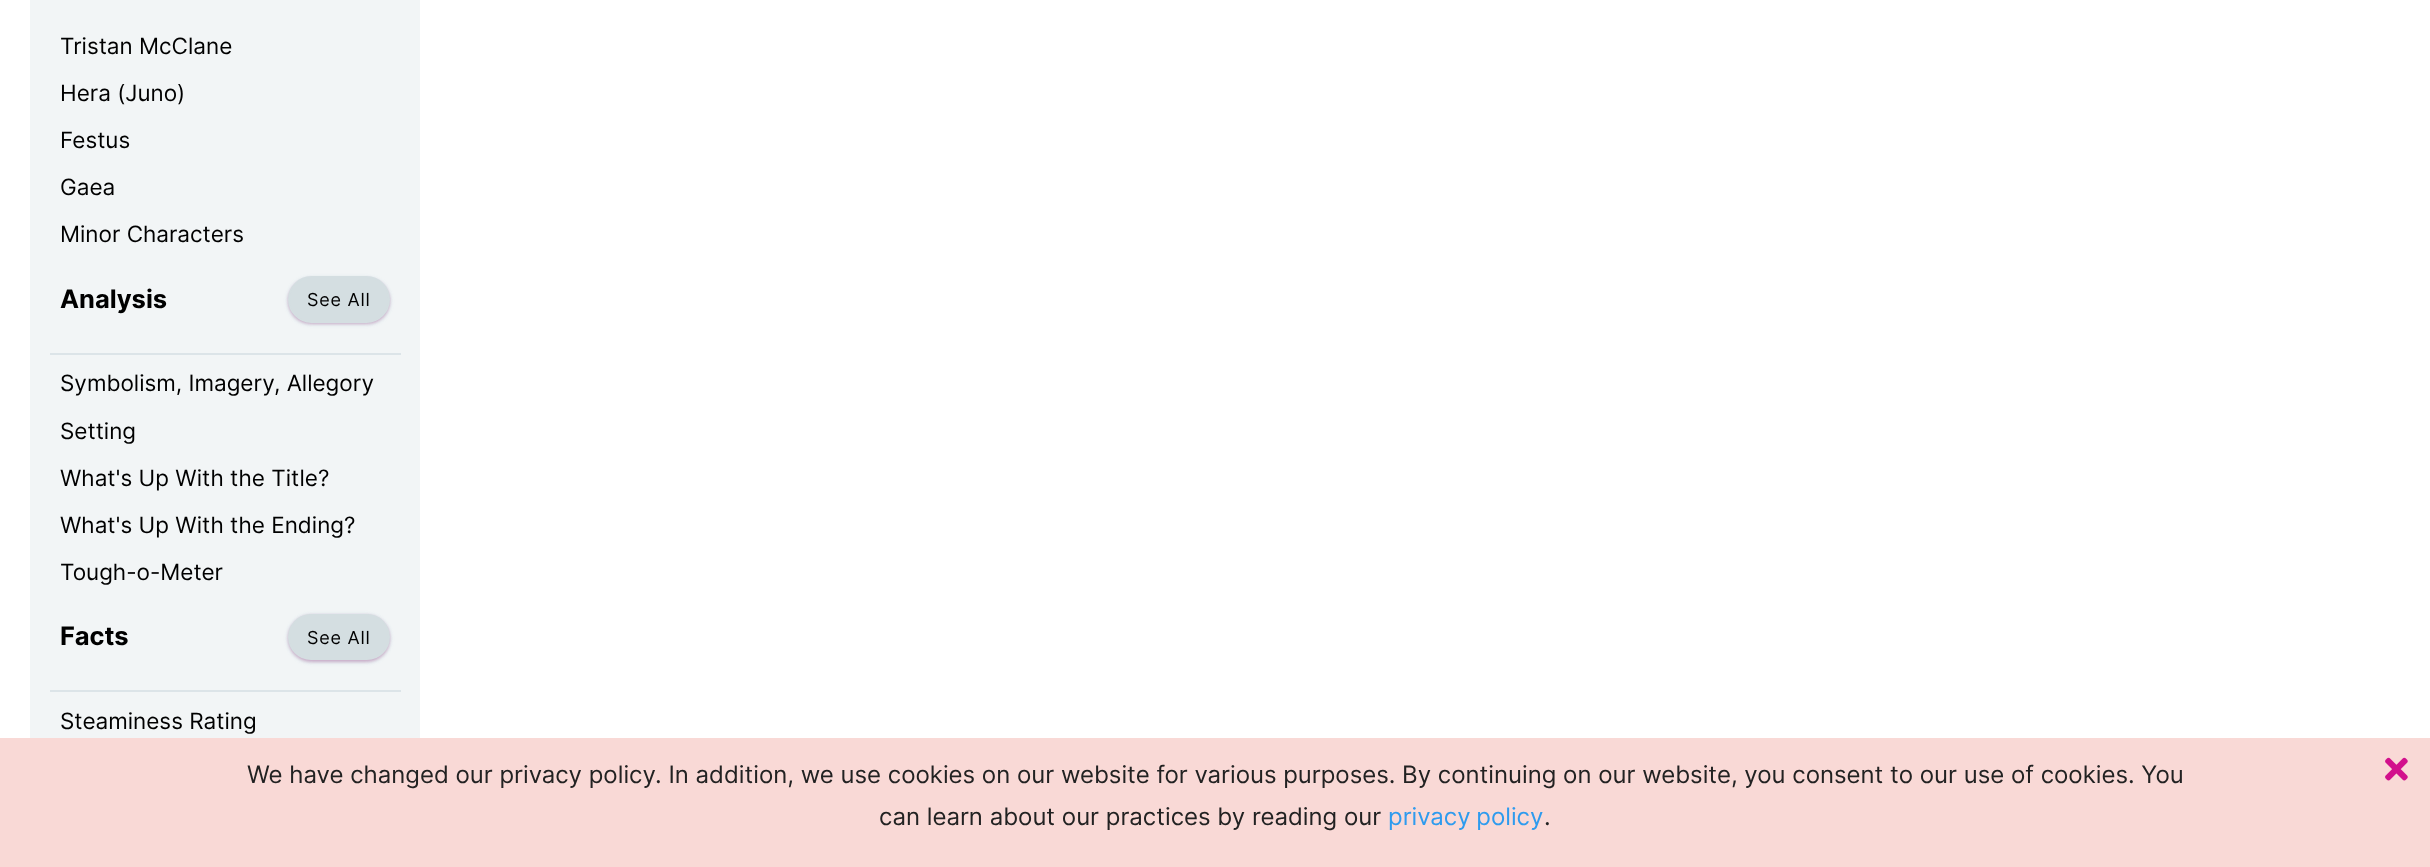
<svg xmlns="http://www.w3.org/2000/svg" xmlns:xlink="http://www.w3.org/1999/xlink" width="2430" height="867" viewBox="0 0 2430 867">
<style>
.cls-1{font:22.5px Inter;fill:#000000}
.cls-2{font:bold 25.5px Inter;fill:#000000}
.cls-3{font:18px Inter;letter-spacing:0.75px;fill:#000000}
.cls-4{font:24px Inter;fill:#222222}
.cls-5{font:24px Inter;fill:#2e9bee}
</style>
<rect width="100%" height="100%" fill="#ffffff"/>
<rect fill="#f2f5f6" x="30" y="0" width="390" height="738"/>
<rect fill="#2c8faf" fill-opacity="0.2" filter="blur(2px)" x="288" y="278" width="102" height="46" rx="23"/>
<rect fill="#b82e7c" fill-opacity="0.3" filter="blur(1.5px)" x="288" y="278" width="102" height="46" rx="23"/>
<rect fill="#d4dee1" stroke="#d4dee1" stroke-width="2" x="289" y="277" width="100" height="45" rx="22.5"/>
<rect fill="#dce4e8" x="50" y="353" width="351" height="2"/>
<rect fill="#2c8faf" fill-opacity="0.2" filter="blur(2px)" x="288" y="615" width="102" height="47" rx="23.5"/>
<rect fill="#b82e7c" fill-opacity="0.3" filter="blur(1.5px)" x="288" y="615" width="102" height="47" rx="23.5"/>
<rect fill="#d4dee1" stroke="#d4dee1" stroke-width="2" x="289" y="615" width="100" height="44" rx="22"/>
<rect fill="#dce4e8" x="50" y="690" width="351" height="2"/>
<rect fill="#f9d9d6" x="0" y="738" width="2430" height="129"/>
<image xlink:href="image0.png" x="2385" y="757" width="23" height="24"/>
<text class="cls-1" x="60" y="54">Tristan McClane</text>
<text class="cls-1" x="60" y="101">Hera (Juno)</text>
<text class="cls-1" x="60" y="148">Festus</text>
<text class="cls-1" x="60" y="195">Gaea</text>
<text class="cls-1" x="60" y="242">Minor Characters</text>
<text class="cls-2" x="60" y="308">Analysis</text>
<text class="cls-3" x="307" y="306">See All</text>
<text class="cls-1" x="60" y="391">Symbolism, Imagery, Allegory</text>
<text class="cls-1" x="60" y="439">Setting</text>
<text class="cls-1" x="60" y="486">What's Up With the Title?</text>
<text class="cls-1" x="60" y="533">What's Up With the Ending?</text>
<text class="cls-1" x="60" y="580">Tough-o-Meter</text>
<text class="cls-2" x="60" y="645">Facts</text>
<text class="cls-3" x="307" y="644">See All</text>
<text class="cls-1" x="60" y="729">Steaminess Rating</text>
<text class="cls-4" x="247" y="783">We have changed our privacy policy. In addition, we use cookies on our website for various purposes. By continuing on our website, you consent to our use of cookies. You</text>
<text class="cls-4" x="879" y="825">can learn about our practices by reading our</text>
<text class="cls-5" x="1388" y="825" word-spacing="-1">privacy policy</text>
<text class="cls-4" x="1544" y="825">.</text>
</svg>
